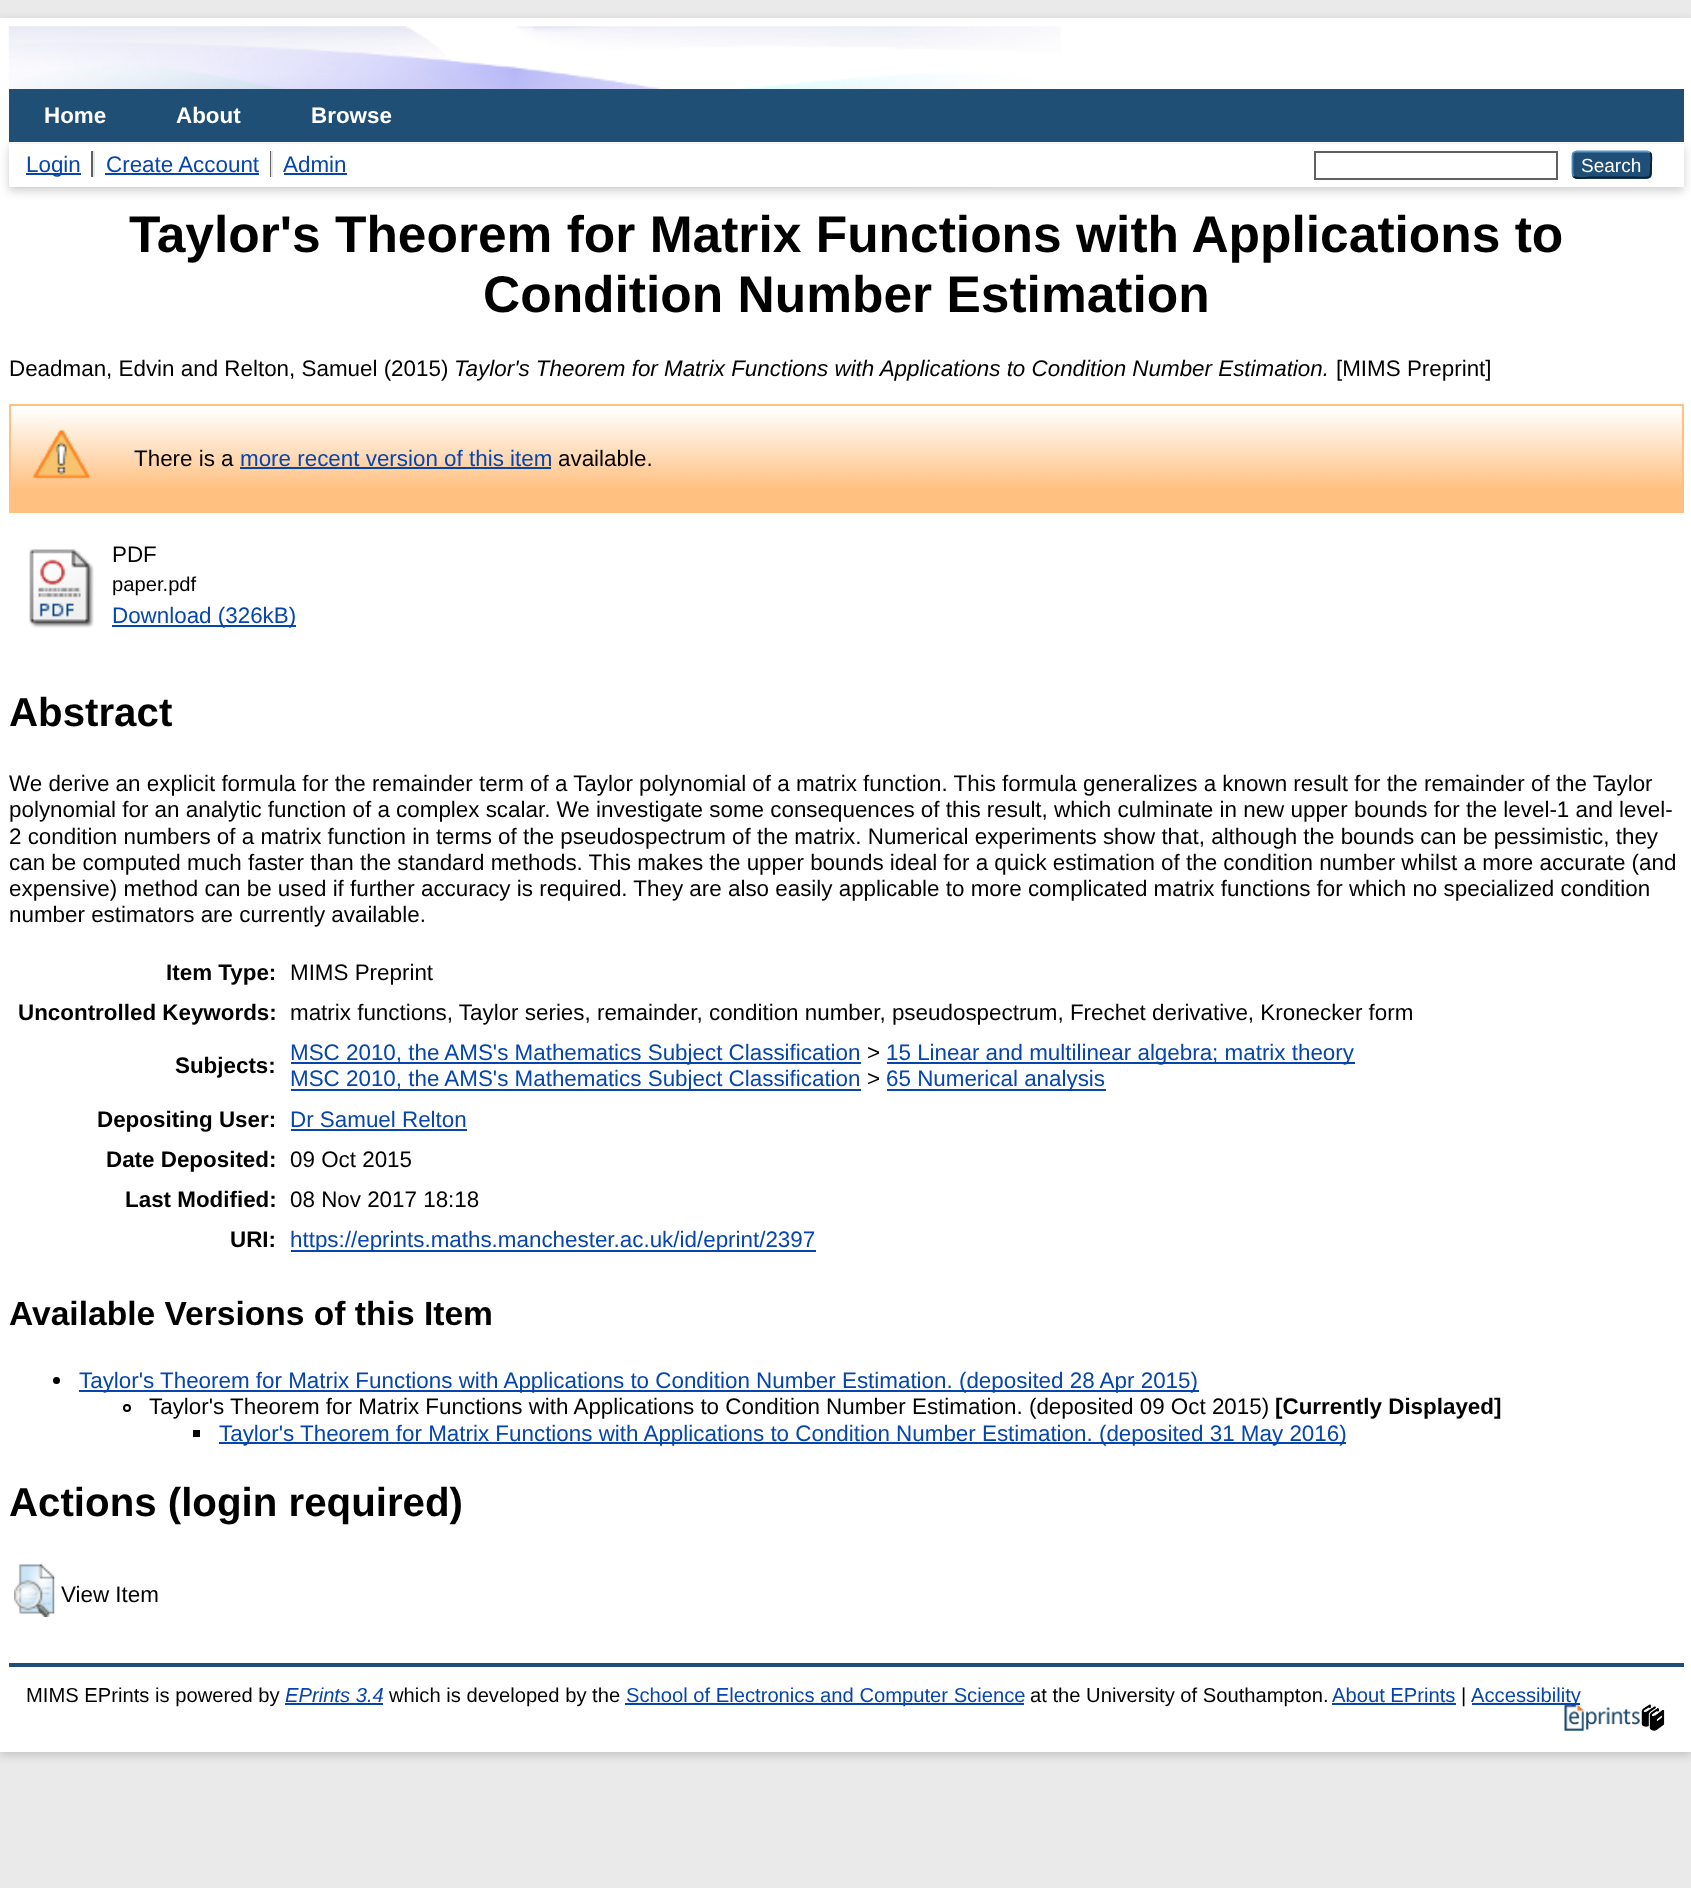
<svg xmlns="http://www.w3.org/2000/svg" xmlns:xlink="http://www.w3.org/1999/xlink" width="1691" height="1888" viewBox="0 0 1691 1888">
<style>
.cls-1{font:bold 22.4px Liberation Sans;fill:#ffffff}
.cls-2{font:22.4px Liberation Sans;fill:#0645ad}
.cls-3{font:19px Liberation Sans;fill:#ffffff}
.cls-4{font:bold 51.5px Liberation Sans;fill:#000000}
.cls-5{font:22.4px Liberation Sans;fill:#000000}
.cls-6{font:italic 22.4px Liberation Sans;fill:#000000}
.cls-7{font:20.2px Liberation Sans;fill:#000000}
.cls-8{font:bold 40.25px Liberation Sans;fill:#000000}
.cls-9{font:bold 22.4px Liberation Sans;fill:#000000}
.cls-10{font:bold 33.6px Liberation Sans;fill:#000000}
.cls-11{font:italic 20.2px Liberation Sans;fill:#0645ad}
.cls-12{font:20.2px Liberation Sans;fill:#0645ad}
</style>
<rect width="100%" height="100%" fill="#eaeaea"/>
<rect fill="#646464" fill-opacity="0.3" filter="blur(5px)" x="0" y="21" width="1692" height="1734"/>
<rect fill="#ffffff" x="0" y="18" width="1691" height="1734"/>
<image xlink:href="image0.png" x="8" y="26" width="1053" height="162"/>
<rect fill="#204f76" x="9" y="89" width="1675" height="53"/>
<rect fill="#ffffff" x="9" y="142" width="880" height="2"/>
<rect fill="#646464" fill-opacity="0.3" filter="blur(5px)" x="9" y="147" width="1675" height="44"/>
<rect fill="#ffffff" x="9" y="144" width="1675" height="43"/>
<rect fill="#606060" x="91" y="151" width="2" height="26"/>
<rect fill="#0645ad" x="26" y="173" width="55" height="2"/>
<rect fill="#606060" x="270" y="151" width="1" height="26"/>
<rect fill="#e8e8e8" x="93" y="151" width="2" height="26"/>
<rect fill="#0645ad" x="105" y="173" width="154" height="2"/>
<rect fill="#e8e8e8" x="271" y="151" width="2" height="26"/>
<rect fill="#0645ad" x="284" y="173" width="63" height="2"/>
<rect fill="none" stroke="#606060" stroke-width="2" x="1315" y="152" width="242" height="27"/>
<rect fill="#1f4f76" x="1572" y="151" width="80" height="28" rx="5"/>
<path fill="none" stroke="#5b97c7" stroke-width="1.8" d="M1573.5 152.5L1576.5 151.5H1647L1650 152.5"/>
<path fill="none" stroke="#0d2131" stroke-width="1.8" d="M1650 152.5C1652.5 155 1651 161.5 1651 164.5C1651 180 1651.5 177.5 1635 177.5H1588.5C1588 177.5 1577 179.5 1573.5 176.5"/>
<path fill="none" stroke="#5287b3" stroke-width="1.8" d="M1573.5 176.5C1573 175.5 1572.5 174.5 1572.5 173V156C1572.5 154.5 1573 153.5 1573.5 152.5"/>
<rect fill="#ffc080" x="11" y="408" width="1671" height="103"/>
<image xlink:href="image1.png" x="11" y="406" width="1671" height="82"/>
<rect fill="none" stroke="#ffc080" stroke-width="2" x="10" y="405" width="1673" height="107"/>
<image xlink:href="image2.png" x="33" y="430" width="57" height="49"/>
<rect fill="#0645ad" x="240" y="467" width="311" height="2"/>
<image xlink:href="image3.png" x="29" y="549" width="65" height="79"/>
<rect fill="#0645ad" x="112" y="625" width="184" height="2"/>
<rect fill="#0645ad" x="291" y="1062" width="570" height="2"/>
<rect fill="#0645ad" x="887" y="1062" width="468" height="2"/>
<rect fill="#0645ad" x="291" y="1089" width="570" height="2"/>
<rect fill="#0645ad" x="887" y="1089" width="219" height="2"/>
<rect fill="#0645ad" x="291" y="1129" width="176" height="2"/>
<rect fill="#0645ad" x="291" y="1250" width="525" height="2"/>
<circle fill="#000000" cx="56.5" cy="1380.5" r="3.5"/>
<rect fill="#0645ad" x="79" y="1390" width="1120" height="2"/>
<circle fill="none" stroke="#000000" stroke-width="2" cx="127" cy="1408" r="3"/>
<rect fill="#000000" x="193" y="1430" width="7" height="7"/>
<rect fill="#0645ad" x="219" y="1442" width="1127" height="2"/>
<image xlink:href="image4.png" x="14" y="1564" width="41" height="53"/>
<rect fill="#204f76" x="9" y="1663" width="1675" height="4"/>
<rect fill="#0645ad" x="285" y="1703" width="98" height="2"/>
<rect fill="#0645ad" x="625" y="1703" width="399" height="2"/>
<rect fill="#0645ad" x="1332" y="1703" width="124" height="2"/>
<rect fill="#0645ad" x="1472" y="1703" width="108" height="2"/>
<image xlink:href="image5.png" x="1564" y="1705" width="76" height="26"/>
<image xlink:href="image6.png" x="1641" y="1704" width="24" height="27"/>
<text class="cls-1" x="44" y="123">Home</text>
<text class="cls-1" x="176" y="123">About</text>
<text class="cls-1" x="311" y="123">Browse</text>
<text class="cls-2" x="26" y="172">Login</text>
<text class="cls-2" x="106" y="172">Create Account</text>
<text class="cls-2" x="283" y="172">Admin</text>
<text class="cls-3" x="1581" y="172">Search</text>
<text class="cls-4" x="129" y="252">Taylor's Theorem for Matrix Functions with Applications to</text>
<text class="cls-4" x="483" y="312">Condition Number Estimation</text>
<text class="cls-5" x="9" y="376">Deadman, Edvin and Relton, Samuel (2015)</text>
<text class="cls-6" x="454" y="376">Taylor's Theorem for Matrix Functions with Applications to Condition Number Estimation.</text>
<text class="cls-5" x="1336" y="376">[MIMS Preprint]</text>
<text class="cls-5" x="134" y="466">There is a</text>
<text class="cls-2" x="240" y="466">more recent version of this item</text>
<text class="cls-5" x="558" y="466">available.</text>
<text class="cls-5" x="112" y="562">PDF</text>
<text class="cls-7" x="112" y="591">paper.pdf</text>
<text class="cls-2" x="112" y="623">Download (326kB)</text>
<text class="cls-8" x="9" y="726">Abstract</text>
<text class="cls-5"><tspan x="9" y="791">We derive an explicit formula for the remainder term of a Taylor polynomial of a matrix function. This formula generalizes a known result for the remainder of the Taylor</tspan><tspan x="9" y="817">polynomial for an analytic function of a complex scalar. We investigate some consequences of this result, which culminate in new upper bounds for the level-1 and level-</tspan><tspan x="9" y="844">2 condition numbers of a matrix function in terms of the pseudospectrum of the matrix. Numerical experiments show that, although the bounds can be pessimistic, they</tspan><tspan x="9" y="870">can be computed much faster than the standard methods. This makes the upper bounds ideal for a quick estimation of the condition number whilst a more accurate (and</tspan><tspan x="9" y="896">expensive) method can be used if further accuracy is required. They are also easily applicable to more complicated matrix functions for which no specialized condition</tspan><tspan x="9" y="922">number estimators are currently available.</tspan></text>
<text class="cls-9" x="166" y="980">Item Type:</text>
<text class="cls-5" x="290" y="980">MIMS Preprint</text>
<text class="cls-9" x="18" y="1020">Uncontrolled Keywords:</text>
<text class="cls-5" x="290" y="1020">matrix functions, Taylor series, remainder, condition number, pseudospectrum, Frechet derivative, Kronecker form</text>
<text class="cls-9" x="175" y="1073">Subjects:</text>
<text class="cls-2" x="290" y="1060">MSC 2010, the AMS's Mathematics Subject Classification</text>
<text class="cls-5" x="867" y="1060">&gt;</text>
<text class="cls-2" x="886" y="1060">15 Linear and multilinear algebra; matrix theory</text>
<text class="cls-2" x="290" y="1086">MSC 2010, the AMS's Mathematics Subject Classification</text>
<text class="cls-5" x="867" y="1086">&gt;</text>
<text class="cls-2" x="886" y="1086">65 Numerical analysis</text>
<text class="cls-9" x="97" y="1127">Depositing User:</text>
<text class="cls-2" x="290" y="1127">Dr Samuel Relton</text>
<text class="cls-9" x="106" y="1167">Date Deposited:</text>
<text class="cls-5" x="290" y="1167">09 Oct 2015</text>
<text class="cls-9" x="125" y="1207">Last Modified:</text>
<text class="cls-5" x="290" y="1207">08 Nov 2017 18:18</text>
<text class="cls-9" x="230" y="1247">URI:</text>
<text class="cls-2" x="290" y="1247">https://eprints.maths.manchester.ac.uk/id/eprint/2397</text>
<text class="cls-10" x="9" y="1325">Available Versions of this Item</text>
<text class="cls-2" x="79" y="1388">Taylor's Theorem for Matrix Functions with Applications to Condition Number Estimation. (deposited 28 Apr 2015)</text>
<text class="cls-5" x="149" y="1414">Taylor's Theorem for Matrix Functions with Applications to Condition Number Estimation. (deposited 09 Oct 2015)</text>
<text class="cls-9" x="1275" y="1414">[Currently Displayed]</text>
<text class="cls-2" x="219" y="1441">Taylor's Theorem for Matrix Functions with Applications to Condition Number Estimation. (deposited 31 May 2016)</text>
<text class="cls-8" x="9" y="1516">Actions (login required)</text>
<text class="cls-5" x="61" y="1602">View Item</text>
<text class="cls-7" x="26" y="1702">MIMS EPrints is powered by</text>
<text class="cls-11" x="285" y="1702">EPrints 3.4</text>
<text class="cls-7" x="389" y="1702">which is developed by the</text>
<text class="cls-12" x="626" y="1702">School of Electronics and Computer Science</text>
<text class="cls-7" x="1030" y="1702">at the University of Southampton.</text>
<text class="cls-12" x="1332" y="1702">About EPrints</text>
<text class="cls-7" x="1461" y="1702">|</text>
<text class="cls-12" x="1471" y="1702">Accessibility</text>
</svg>
